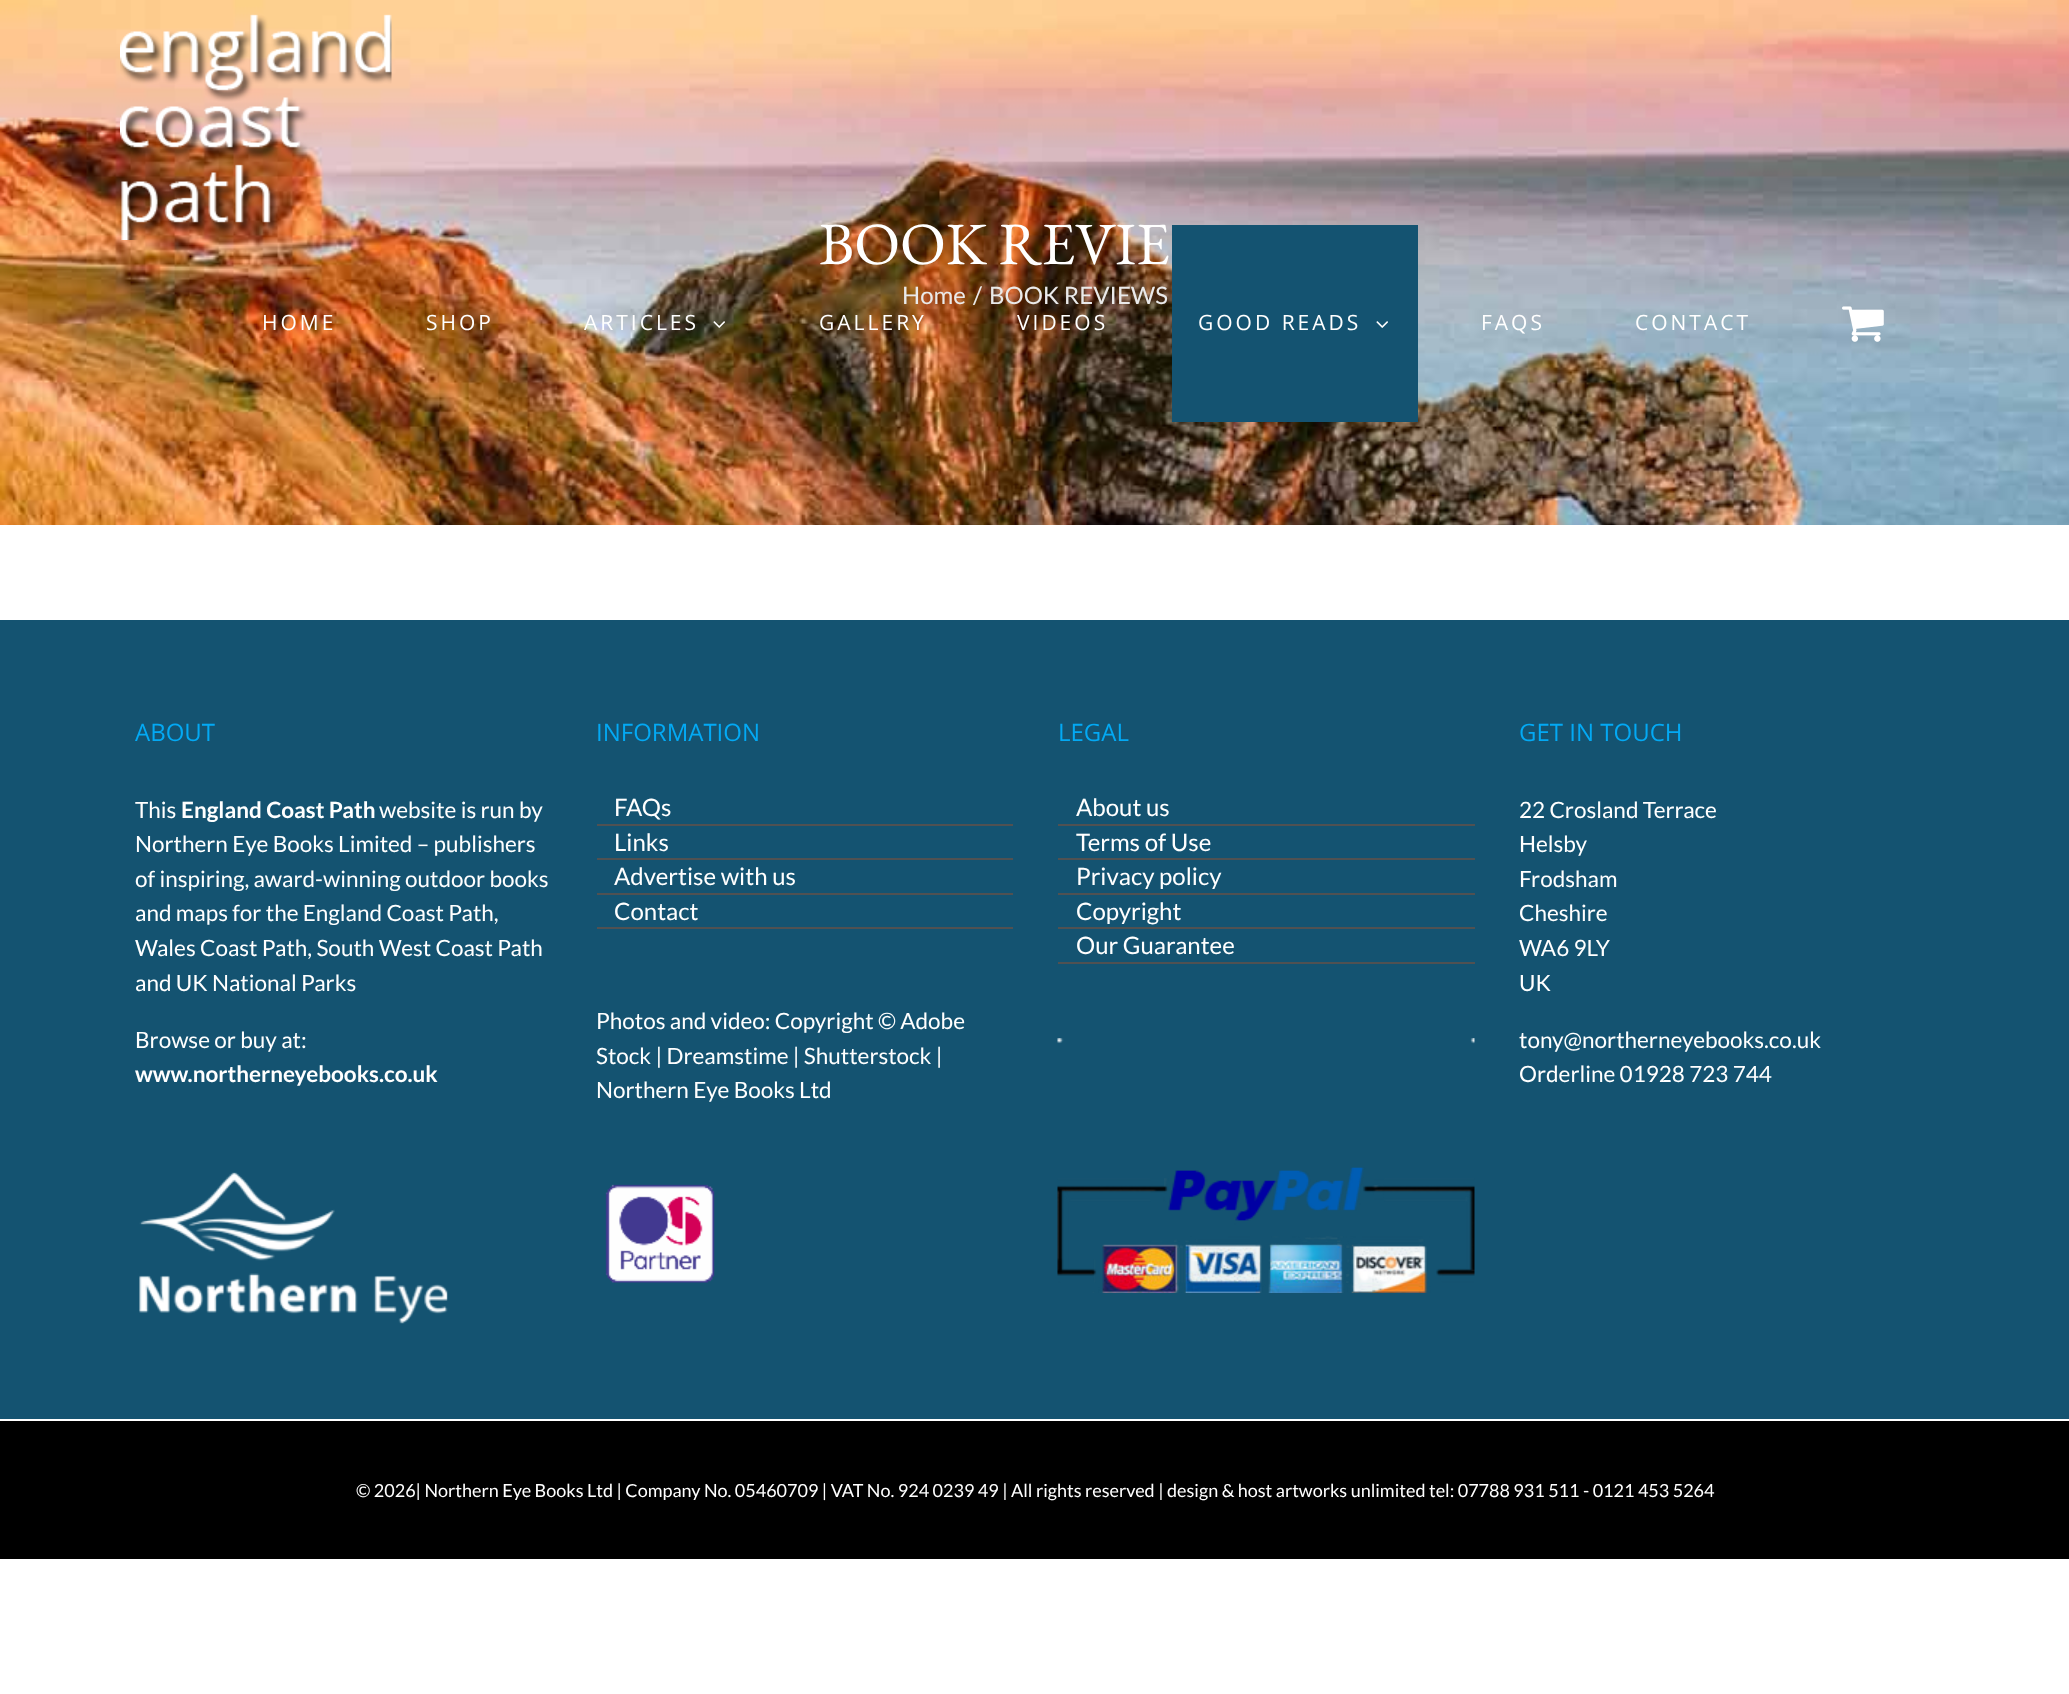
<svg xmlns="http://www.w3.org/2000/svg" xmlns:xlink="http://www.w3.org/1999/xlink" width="2069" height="1694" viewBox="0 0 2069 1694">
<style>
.cls-1{font:60px EB Garamond;fill:#ffffff}
.cls-2{font:24px Lato;fill:#eaeaea}
.cls-3{font:21px Open Sans;letter-spacing:3px;fill:#ffffff}
.cls-4{font:24px Open Sans;fill:#03a9f4}
.cls-5{font:22.5px Lato;fill:#ffffff}
.cls-6{font:bold 22.5px Lato;fill:#ffffff}
.cls-7{font:24px Lato;fill:#ffffff}
.cls-8{font:18px Lato;fill:#ffffff}
</style>
<rect width="100%" height="100%" fill="#ffffff"/>
<image xlink:href="image0.png" x="0" y="0" width="2069" height="525"/>
<image xlink:href="image1.png" x="120" y="14" width="272" height="226"/>
<image xlink:href="image2.png" x="713" y="321" width="12" height="7"/>
<rect fill="#145371" x="1172" y="225" width="246" height="197"/>
<image xlink:href="image3.png" x="1376" y="321" width="12" height="7"/>
<image xlink:href="image4.png" x="1842" y="306" width="42" height="36"/>
<rect fill="#145371" x="0" y="620" width="2069" height="799"/>
<image xlink:href="image5.png" x="139" y="1172" width="309" height="152"/>
<rect fill="#505152" x="597" y="824" width="416" height="2"/>
<rect fill="#505152" x="597" y="858" width="416" height="2"/>
<rect fill="#505152" x="597" y="893" width="416" height="2"/>
<rect fill="#505152" x="597" y="927" width="416" height="2"/>
<image xlink:href="image6.png" x="605" y="1184" width="110" height="99"/>
<rect fill="#505152" x="1058" y="824" width="417" height="2"/>
<rect fill="#505152" x="1058" y="858" width="417" height="2"/>
<rect fill="#505152" x="1058" y="893" width="417" height="2"/>
<rect fill="#505152" x="1058" y="927" width="417" height="2"/>
<rect fill="#505152" x="1058" y="962" width="417" height="2"/>
<image xlink:href="image7.png" x="1057" y="1038" width="418" height="255"/>
<rect fill="#000000" x="0" y="1421" width="2069" height="138"/>
<text class="cls-1" x="819" y="264">BOOK REVIE</text>
<text class="cls-2" x="902" y="304">Home</text>
<text class="cls-2" x="973" y="304">/</text>
<text class="cls-2" x="989" y="304">BOOK REVIEWS</text>
<text class="cls-3" x="262" y="330">HOME</text>
<text class="cls-3" x="426" y="330">SHOP</text>
<text class="cls-3" x="584" y="330">ARTICLES</text>
<text class="cls-3" x="819" y="330">GALLERY</text>
<text class="cls-3" x="1017" y="330">VIDEOS</text>
<text class="cls-3" x="1198" y="330">GOOD READS</text>
<text class="cls-3" x="1481" y="330">FAQS</text>
<text class="cls-3" x="1635" y="330">CONTACT</text>
<text class="cls-4" x="135" y="741">ABOUT</text>
<text class="cls-5" x="135" y="818">This</text>
<text class="cls-6" x="181" y="818">England Coast Path</text>
<text class="cls-5" x="379" y="818">website is run by</text>
<text class="cls-5"><tspan x="135" y="852">Northern Eye Books Limited – publishers</tspan><tspan x="135" y="887">of inspiring, award-winning outdoor books</tspan><tspan x="135" y="921">and maps for the England Coast Path,</tspan><tspan x="135" y="956">Wales Coast Path, South West Coast Path</tspan><tspan x="135" y="991">and UK National Parks</tspan></text>
<text class="cls-5" x="135" y="1048">Browse or buy at:</text>
<text class="cls-6" x="135" y="1082">www.northerneyebooks.co.uk</text>
<text class="cls-4" x="596" y="741">INFORMATION</text>
<text class="cls-7"><tspan x="614" y="816">FAQs</tspan><tspan x="614" y="851">Links</tspan><tspan x="614" y="885">Advertise with us</tspan><tspan x="614" y="920">Contact</tspan></text>
<text class="cls-5"><tspan x="596" y="1029">Photos and video: Copyright © Adobe</tspan><tspan x="596" y="1064">Stock | Dreamstime | Shutterstock |</tspan><tspan x="596" y="1098">Northern Eye Books Ltd</tspan></text>
<text class="cls-4" x="1058" y="741">LEGAL</text>
<text class="cls-7"><tspan x="1076" y="816">About us</tspan><tspan x="1076" y="851">Terms of Use</tspan><tspan x="1076" y="885">Privacy policy</tspan><tspan x="1076" y="920">Copyright</tspan><tspan x="1076" y="954">Our Guarantee</tspan></text>
<text class="cls-4" x="1519" y="741">GET IN TOUCH</text>
<text class="cls-5"><tspan x="1519" y="818">22 Crosland Terrace</tspan><tspan x="1519" y="852">Helsby</tspan><tspan x="1519" y="887">Frodsham</tspan><tspan x="1519" y="921">Cheshire</tspan><tspan x="1519" y="956">WA6 9LY</tspan><tspan x="1519" y="991">UK</tspan></text>
<text class="cls-5"><tspan x="1519" y="1048">tony@northerneyebooks.co.uk</tspan><tspan x="1519" y="1082">Orderline 01928 723 744</tspan></text>
<text class="cls-8" x="356" y="1497">© 2026| Northern Eye Books Ltd | Company No. 05460709 | VAT No. 924 0239 49 | All rights reserved | design &amp; host artworks unlimited tel: 07788 931 511 - 0121 453 5264</text>
</svg>
